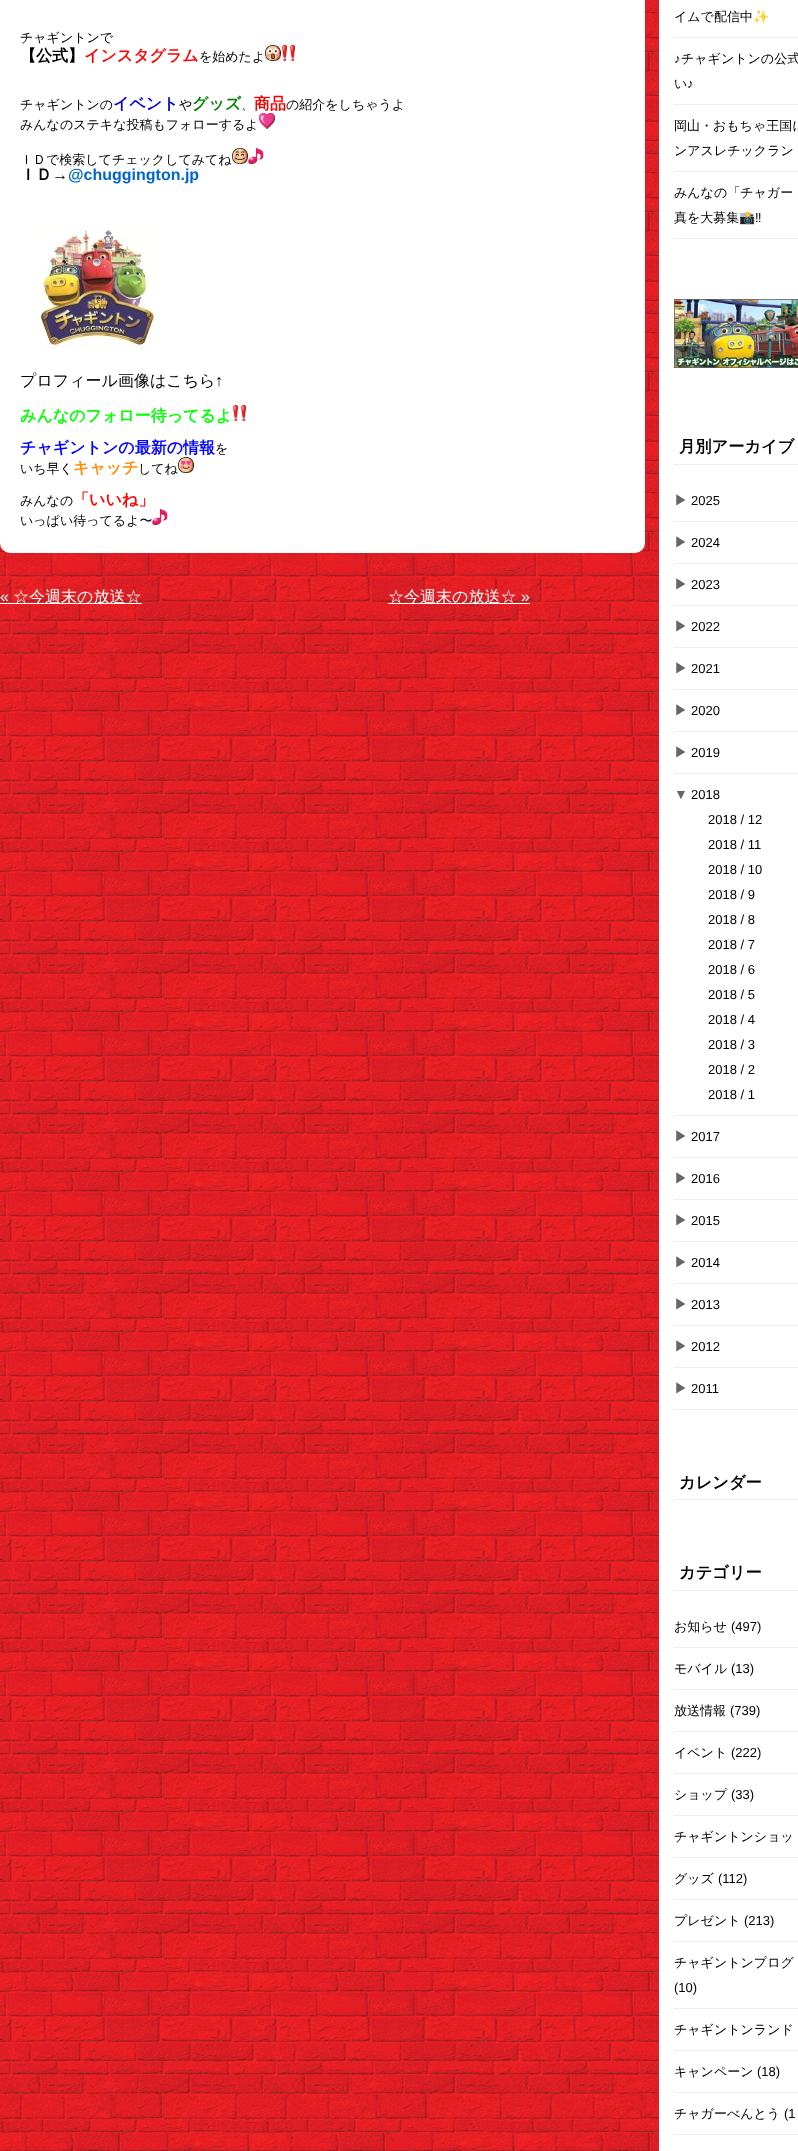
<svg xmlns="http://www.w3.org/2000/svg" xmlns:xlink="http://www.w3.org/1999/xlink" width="798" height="2151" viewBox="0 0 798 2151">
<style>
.cls-1{font:500 13px WenQuanYi Zen Hei;fill:#000000}
.cls-2{font:bold 16px WenQuanYi Zen Hei;fill:#000000}
.cls-3{font:bold 16px WenQuanYi Zen Hei;fill:#ff0000}
.cls-4{font:bold 16px WenQuanYi Zen Hei;fill:#0000cd}
.cls-5{font:bold 16px WenQuanYi Zen Hei;fill:#008000}
.cls-6{font:bold 16px Liberation Sans;fill:#000000}
.cls-7{font:bold 16px Liberation Sans;fill:#0066cc}
.cls-8{font:500 16px WenQuanYi Zen Hei;fill:#000000}
.cls-9{font:16px Liberation Sans;fill:#000000}
.cls-10{font:bold 16px WenQuanYi Zen Hei;fill:#00ff00}
.cls-11{font:bold 16px WenQuanYi Zen Hei;fill:#0000ff}
.cls-12{font:bold 16px WenQuanYi Zen Hei;fill:#ff8c00}
.cls-13{font:16px Liberation Sans;fill:#ffffff}
.cls-14{font:500 16px WenQuanYi Zen Hei;fill:#ffffff}
.cls-15{font:13px Noto Color Emoji;fill:#000000}
.cls-16{font:13px Liberation Sans;fill:#000000}
.cls-17{font:bold 16.25px WenQuanYi Zen Hei;fill:#000000}
.cls-18{font:500 14px WenQuanYi Zen Hei;fill:#666666}
.cls-19{font:14px Liberation Sans;fill:#666666}
</style>
<rect width="100%" height="100%" fill="#ffffff"/>
<image xlink:href="image0.png" x="0" y="0" width="659" height="2151"/>
<rect fill="#ffffff" x="0" y="-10" width="645" height="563" rx="10"/>
<image xlink:href="image1.png" x="265" y="45" width="16" height="16"/>
<image xlink:href="image2.png" x="282" y="45" width="13" height="16"/>
<image xlink:href="image3.png" x="259" y="113" width="16" height="16"/>
<image xlink:href="image4.png" x="232" y="148" width="16" height="16"/>
<image xlink:href="image5.png" x="248" y="148" width="16" height="16"/>
<image xlink:href="image6.png" x="40" y="221" width="120" height="129"/>
<image xlink:href="image2.png" x="233" y="405" width="13" height="16"/>
<image xlink:href="image5.png" x="152" y="509" width="16" height="16"/>
<rect fill="#ffffff" x="0" y="603" width="142" height="1"/>
<rect fill="#ffffff" x="388" y="603" width="142" height="1"/>
<rect fill="#eceef1" x="674" y="37" width="124" height="1"/>
<rect fill="#eceef1" x="674" y="104" width="124" height="1"/>
<rect fill="#eceef1" x="674" y="171" width="124" height="1"/>
<rect fill="#eceef1" x="674" y="238" width="124" height="1"/>
<image xlink:href="image8.png" x="674" y="299" width="124" height="69"/>
<rect fill="#eceef1" x="674" y="464" width="124" height="1"/>
<rect fill="#eceef1" x="674" y="521" width="124" height="1"/>
<rect fill="#eceef1" x="674" y="563" width="124" height="1"/>
<rect fill="#eceef1" x="674" y="605" width="124" height="1"/>
<rect fill="#eceef1" x="674" y="647" width="124" height="1"/>
<rect fill="#eceef1" x="674" y="689" width="124" height="1"/>
<rect fill="#eceef1" x="674" y="731" width="124" height="1"/>
<rect fill="#eceef1" x="674" y="773" width="124" height="1"/>
<rect fill="#eceef1" x="674" y="1115" width="124" height="1"/>
<rect fill="#eceef1" x="674" y="1157" width="124" height="1"/>
<rect fill="#eceef1" x="674" y="1199" width="124" height="1"/>
<rect fill="#eceef1" x="674" y="1241" width="124" height="1"/>
<rect fill="#eceef1" x="674" y="1283" width="124" height="1"/>
<rect fill="#eceef1" x="674" y="1325" width="124" height="1"/>
<rect fill="#eceef1" x="674" y="1367" width="124" height="1"/>
<rect fill="#eceef1" x="674" y="1409" width="124" height="1"/>
<rect fill="#eceef1" x="674" y="1499" width="124" height="1"/>
<rect fill="#eceef1" x="674" y="1590" width="124" height="1"/>
<rect fill="#eceef1" x="674" y="1647" width="124" height="1"/>
<rect fill="#eceef1" x="674" y="1689" width="124" height="1"/>
<rect fill="#eceef1" x="674" y="1731" width="124" height="1"/>
<rect fill="#eceef1" x="674" y="1773" width="124" height="1"/>
<rect fill="#eceef1" x="674" y="1815" width="124" height="1"/>
<rect fill="#eceef1" x="674" y="1857" width="124" height="1"/>
<rect fill="#eceef1" x="674" y="1899" width="124" height="1"/>
<rect fill="#eceef1" x="674" y="1941" width="124" height="1"/>
<rect fill="#eceef1" x="674" y="2008" width="124" height="1"/>
<rect fill="#eceef1" x="674" y="2050" width="124" height="1"/>
<rect fill="#eceef1" x="674" y="2092" width="124" height="1"/>
<rect fill="#eceef1" x="674" y="2134" width="124" height="1"/>
<text class="cls-1" x="20" y="42">チャギントンで</text>
<text class="cls-2" x="20" y="61">【公式】</text>
<text class="cls-3" x="84" y="61">インスタグラム</text>
<text class="cls-1" x="199" y="61">を始めたよ</text>
<text class="cls-1" x="20" y="109">チャギントンの</text>
<text class="cls-4" x="113" y="109">イベント</text>
<text class="cls-1" x="179" y="109">や</text>
<text class="cls-5" x="192" y="109">グッズ</text>
<text class="cls-1" x="241" y="109">、</text>
<text class="cls-3" x="254" y="109">商品</text>
<text class="cls-1" x="286" y="109">の紹介をしちゃうよ</text>
<text class="cls-1" x="20" y="129">みんなのステキな投稿もフォローするよ</text>
<text class="cls-1" x="20" y="164">ＩＤで検索してチェックしてみてね</text>
<text class="cls-2" x="20" y="180">ＩＤ</text>
<text class="cls-6" x="52" y="180">→</text>
<text class="cls-7" x="68" y="180">@chuggington.jp</text>
<text class="cls-8" x="20" y="386">プロフィール画像はこちら</text>
<text class="cls-9" x="215" y="386">↑</text>
<text class="cls-10" x="20" y="421">みんなのフォロー待ってるよ</text>
<text class="cls-11" x="20" y="453">チャギントンの最新の情報</text>
<text class="cls-1" x="215" y="453">を</text>
<text class="cls-1" x="20" y="473">いち早く</text>
<text class="cls-12" x="73" y="473">キャッチ</text>
<text class="cls-1" x="138" y="473">してね</text>
<image xlink:href="image7.png" x="178" y="457" width="16" height="16"/>
<text class="cls-1" x="20" y="505">みんなの</text>
<text class="cls-3" x="73" y="505">「いいね」</text>
<text class="cls-1" x="20" y="525">いっぱい待ってるよ〜</text>
<text class="cls-13" x="0" y="602">«</text>
<text class="cls-14" x="13" y="602">☆今週末の放送☆</text>
<text class="cls-14" x="388" y="602">☆今週末の放送☆</text>
<text class="cls-13" x="521" y="602">»</text>
<text class="cls-1" x="674" y="21">イムで配信中</text>
<text class="cls-15" x="753" y="21">✨</text>
<text class="cls-16" x="674" y="63">♪</text>
<text class="cls-1" x="681" y="63">チャギントンの公式</text>
<text class="cls-1" x="674" y="88">い</text>
<text class="cls-16" x="687" y="88">♪</text>
<text class="cls-1"><tspan x="674" y="130">岡山・おもちゃ王国に</tspan><tspan x="674" y="155">ンアスレチックラン</tspan></text>
<text class="cls-1"><tspan x="674" y="197">みんなの「チャガー</tspan><tspan x="674" y="222">真を大募集</tspan></text>
<text class="cls-15" x="739" y="222">📸</text>
<text class="cls-16" x="755" y="222">‼</text>
<text class="cls-17" x="679" y="452">月別アーカイブ</text>
<text class="cls-18" x="674" y="505">▶</text>
<text class="cls-16" x="691" y="505">2025</text>
<text class="cls-18" x="674" y="547">▶</text>
<text class="cls-16" x="691" y="547">2024</text>
<text class="cls-18" x="674" y="589">▶</text>
<text class="cls-16" x="691" y="589">2023</text>
<text class="cls-18" x="674" y="631">▶</text>
<text class="cls-16" x="691" y="631">2022</text>
<text class="cls-18" x="674" y="673">▶</text>
<text class="cls-16" x="691" y="673">2021</text>
<text class="cls-18" x="674" y="715">▶</text>
<text class="cls-16" x="691" y="715">2020</text>
<text class="cls-18" x="674" y="757">▶</text>
<text class="cls-16" x="691" y="757">2019</text>
<text class="cls-19" x="674" y="799">▼</text>
<text class="cls-16" x="691" y="799">2018</text>
<text class="cls-16"><tspan x="708" y="824">2018 / 12</tspan><tspan x="708" y="849">2018 / 11</tspan><tspan x="708" y="874">2018 / 10</tspan><tspan x="708" y="899">2018 / 9</tspan><tspan x="708" y="924">2018 / 8</tspan><tspan x="708" y="949">2018 / 7</tspan><tspan x="708" y="974">2018 / 6</tspan><tspan x="708" y="999">2018 / 5</tspan><tspan x="708" y="1024">2018 / 4</tspan><tspan x="708" y="1049">2018 / 3</tspan><tspan x="708" y="1074">2018 / 2</tspan><tspan x="708" y="1099">2018 / 1</tspan></text>
<text class="cls-18" x="674" y="1141">▶</text>
<text class="cls-16" x="691" y="1141">2017</text>
<text class="cls-18" x="674" y="1183">▶</text>
<text class="cls-16" x="691" y="1183">2016</text>
<text class="cls-18" x="674" y="1225">▶</text>
<text class="cls-16" x="691" y="1225">2015</text>
<text class="cls-18" x="674" y="1267">▶</text>
<text class="cls-16" x="691" y="1267">2014</text>
<text class="cls-18" x="674" y="1309">▶</text>
<text class="cls-16" x="691" y="1309">2013</text>
<text class="cls-18" x="674" y="1351">▶</text>
<text class="cls-16" x="691" y="1351">2012</text>
<text class="cls-18" x="674" y="1393">▶</text>
<text class="cls-16" x="691" y="1393">2011</text>
<text class="cls-17" x="679" y="1488">カレンダー</text>
<text class="cls-17" x="679" y="1578">カテゴリー</text>
<text class="cls-1" x="674" y="1631">お知らせ</text>
<text class="cls-16" x="731" y="1631">(497)</text>
<text class="cls-1" x="674" y="1673">モバイル</text>
<text class="cls-16" x="731" y="1673">(13)</text>
<text class="cls-1" x="674" y="1715">放送情報</text>
<text class="cls-16" x="730" y="1715">(739)</text>
<text class="cls-1" x="674" y="1757">イベント</text>
<text class="cls-16" x="731" y="1757">(222)</text>
<text class="cls-1" x="674" y="1799">ショップ</text>
<text class="cls-16" x="731" y="1799">(33)</text>
<text class="cls-1" x="674" y="1841">チャギントンショッ</text>
<text class="cls-1" x="674" y="1883">グッズ</text>
<text class="cls-16" x="718" y="1883">(112)</text>
<text class="cls-1" x="674" y="1925">プレゼント</text>
<text class="cls-16" x="744" y="1925">(213)</text>
<text class="cls-1" x="674" y="1967">チャギントンプログ</text>
<text class="cls-16" x="674" y="1992">(10)</text>
<text class="cls-1" x="674" y="2034">チャギントンランド</text>
<text class="cls-1" x="674" y="2076">キャンペーン</text>
<text class="cls-16" x="757" y="2076">(18)</text>
<text class="cls-1" x="674" y="2118">チャガーべんとう</text>
<text class="cls-16" x="784" y="2118">(1</text>
</svg>
